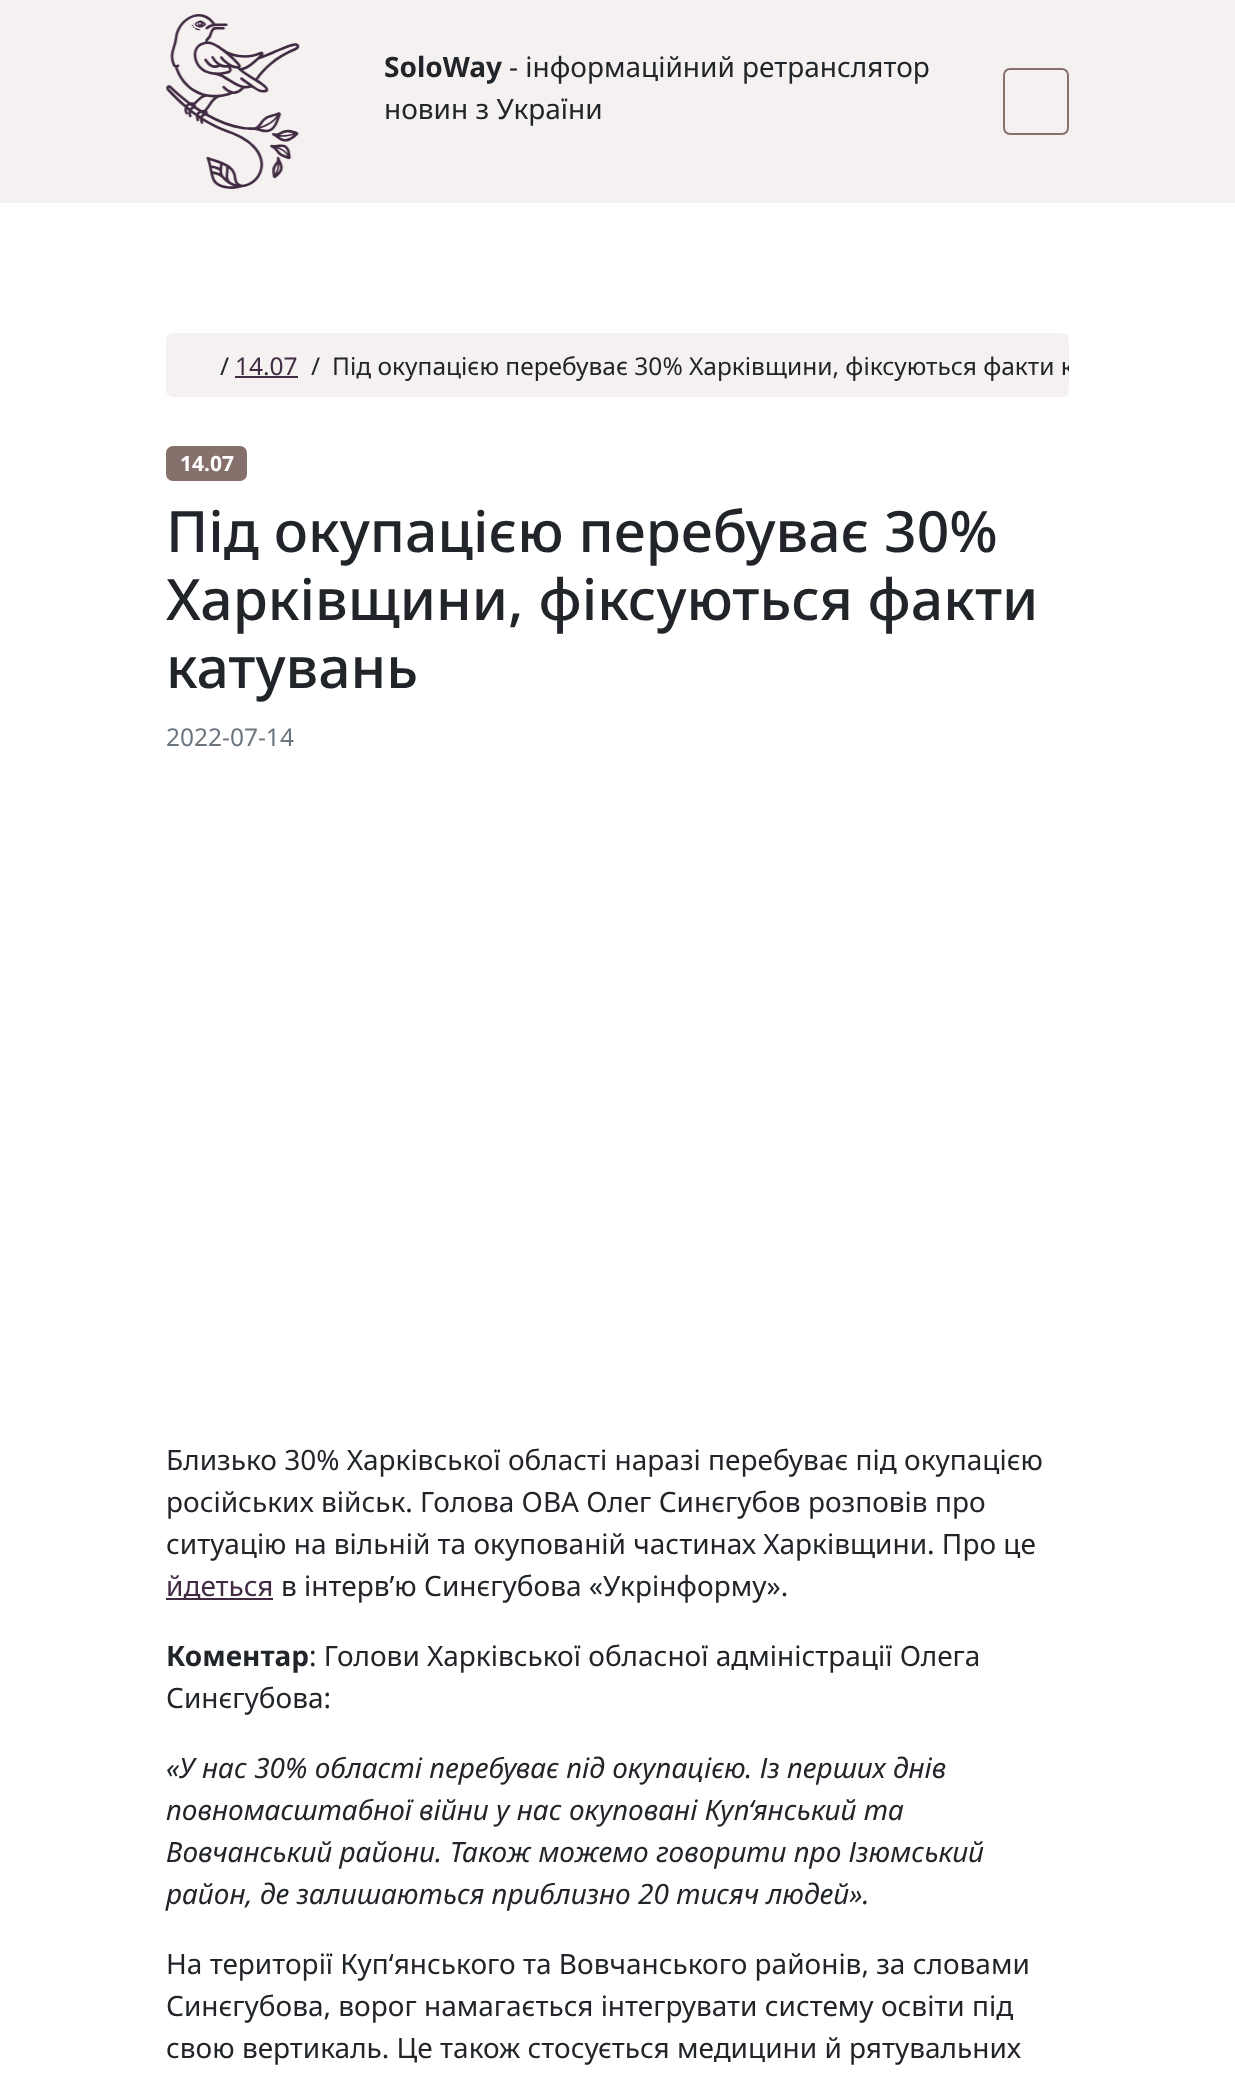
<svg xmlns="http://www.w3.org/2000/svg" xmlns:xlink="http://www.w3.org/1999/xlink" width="1235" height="2080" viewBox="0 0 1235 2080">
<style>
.cls-1{font:bold 28px Noto Sans;fill:#212529}
.cls-2{font:28px Noto Sans;fill:#212529}
.cls-3{font:24.5px Noto Sans;fill:#212529}
.cls-4{font:24.5px Noto Sans;fill:#412b42}
.cls-5{font:bold 21px Noto Sans;fill:#ffffff}
.cls-6{font:500 57px Noto Sans;fill:#212529}
.cls-7{font:24.5px Noto Sans;fill:#6c757d}
.cls-8{font:28px Noto Sans;fill:#412b42}
.cls-9{font:italic 28px Noto Sans;fill:#212529}
</style>
<defs>
<clipPath id="clip1"><rect x="166" y="333" width="903" height="64" rx="7"/></clipPath>
</defs>
<rect width="100%" height="100%" fill="#ffffff"/>
<rect fill="#f5f1f0" x="0" y="0" width="1235" height="203"/>
<image xlink:href="image0.png" x="166" y="14" width="134" height="175"/>
<rect fill="none" stroke="#85706b" stroke-width="2" x="1004" y="69" width="64" height="65" rx="6"/>
<rect fill="#f5f1f0" x="166" y="333" width="903" height="64" rx="7"/>
<rect fill="#412b42" x="235" y="376" width="63" height="2"/>
<rect fill="#85706b" x="166" y="446" width="81" height="35" rx="7"/>
<rect fill="#412b42" x="166" y="1598" width="107" height="2"/>
<text class="cls-1" x="384" y="77">SoloWay</text>
<text class="cls-2" x="509" y="77">- інформаційний ретранслятор</text>
<text class="cls-2" x="384" y="119">новин з України</text>
<text class="cls-3" x="220" y="375">/</text>
<text class="cls-4" x="235" y="375">14.07</text>
<text class="cls-3" x="311" y="375">/</text>
<g clip-path="url(#clip1)">
<text class="cls-3" x="332" y="375">Під окупацією перебуває 30% Харківщини, фіксуються факти к</text>
</g>
<text class="cls-5" x="180" y="471">14.07</text>
<text class="cls-6"><tspan x="166" y="552">Під окупацією перебуває 30%</tspan><tspan x="166" y="620">Харківщини, фіксуються факти</tspan><tspan x="166" y="688">катувань</tspan></text>
<text class="cls-7" x="166" y="746">2022-07-14</text>
<text class="cls-2"><tspan x="166" y="1470">Близько 30% Харківської області наразі перебуває під окупацією</tspan><tspan x="166" y="1512">російських військ. Голова ОВА Олег Синєгубов розповів про</tspan><tspan x="166" y="1554">ситуацію на вільній та окупованій частинах Харківщини. Про це</tspan></text>
<text class="cls-8" x="166" y="1596">йдеться</text>
<text class="cls-2" x="281" y="1596">в інтерв’ю Синєгубова «Укрінформу».</text>
<text class="cls-1" x="166" y="1666">Коментар</text>
<text class="cls-2" x="309" y="1666">: Голови Харківської обласної адміністрації Олега</text>
<text class="cls-2" x="166" y="1708">Синєгубова:</text>
<text class="cls-9"><tspan x="166" y="1778">«У нас 30% області перебуває під окупацією. Із перших днів</tspan><tspan x="166" y="1820">повномасштабної війни у нас окуповані Куп‘янський та</tspan><tspan x="166" y="1862">Вовчанський райони. Також можемо говорити про Ізюмський</tspan><tspan x="166" y="1904">район, де залишаються приблизно 20 тисяч людей».</tspan></text>
<text class="cls-2"><tspan x="166" y="1974">На території Куп‘янського та Вовчанського районів, за словами</tspan><tspan x="166" y="2016">Синєгубова, ворог намагається інтегрувати систему освіти під</tspan><tspan x="166" y="2058">свою вертикаль. Це також стосується медицини й рятувальних</tspan></text>
</svg>
